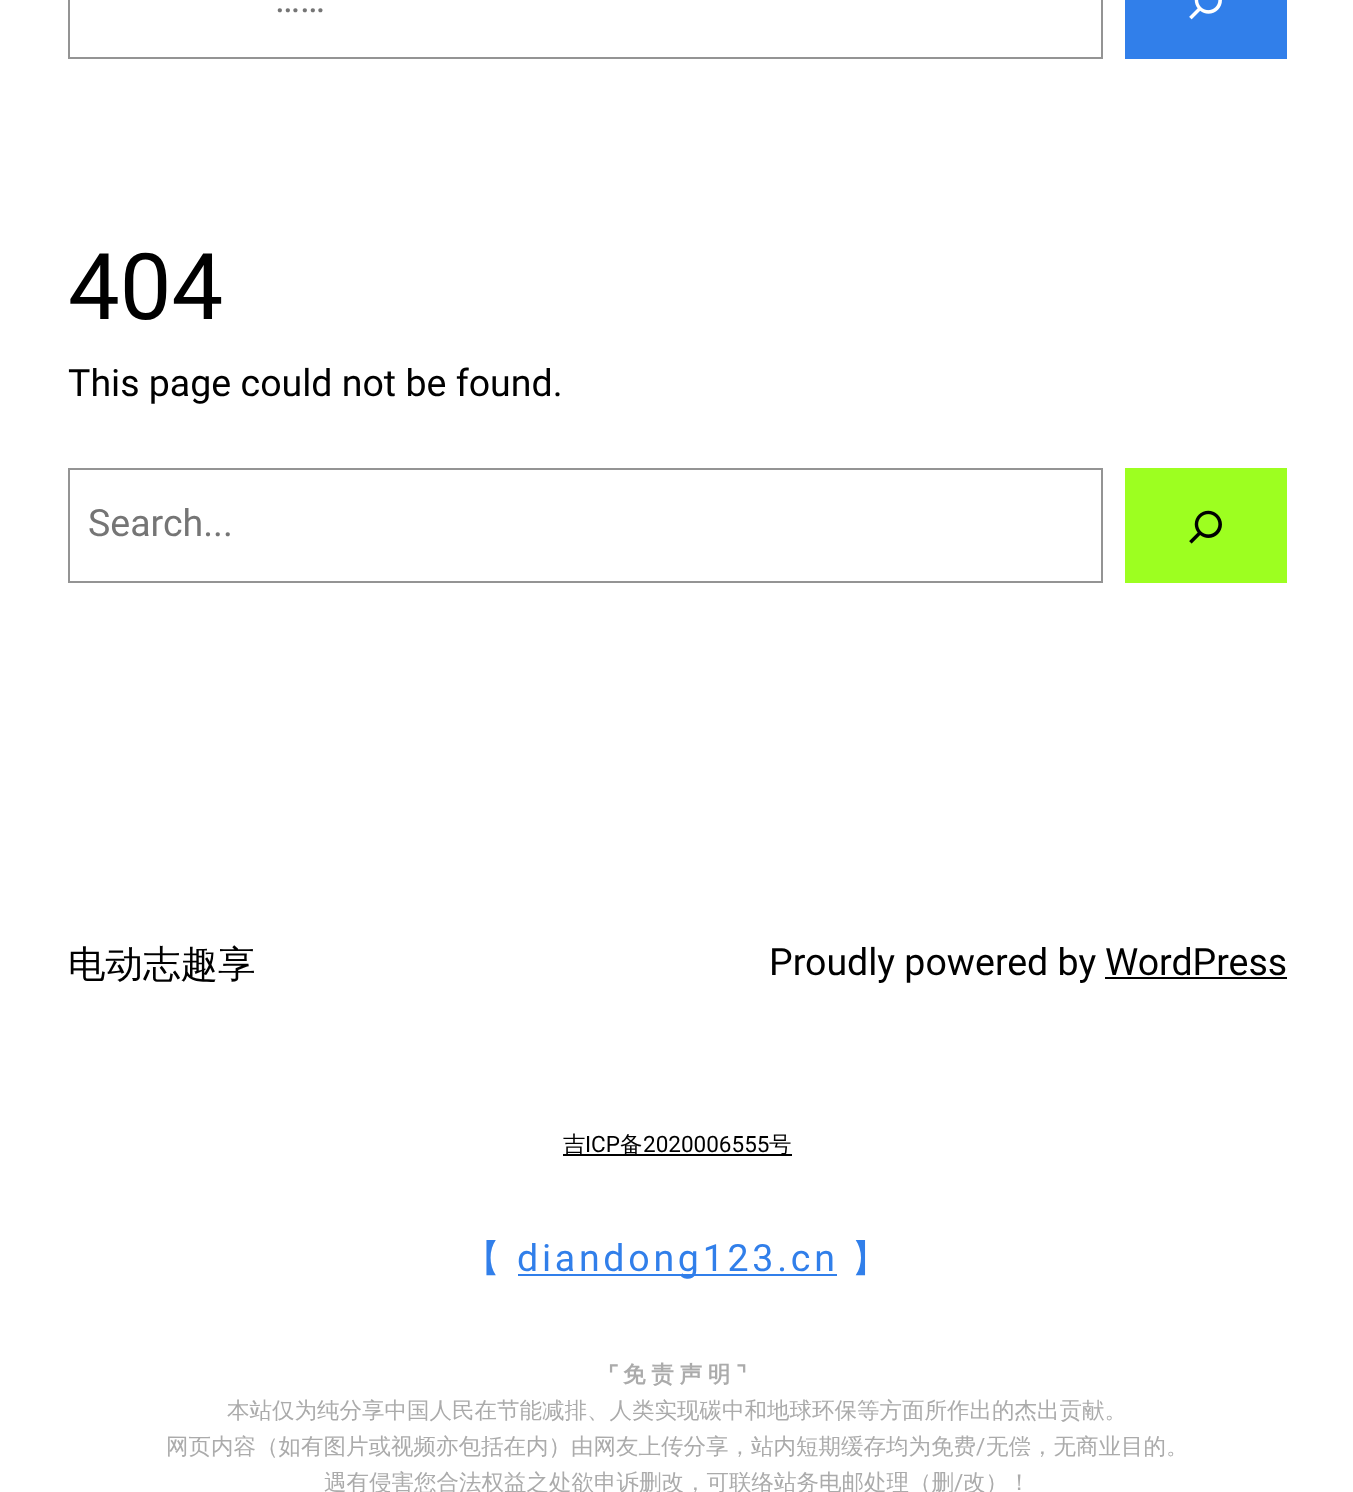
<svg xmlns="http://www.w3.org/2000/svg" xmlns:xlink="http://www.w3.org/1999/xlink" width="1353" height="1492" viewBox="0 0 1353 1492">
<style>
.cls-1{font:37.5px Roboto;fill:#757575}
.cls-2{font:92px Roboto;fill:#000000}
.cls-3{font:37.5px Roboto;fill:#000000}
.cls-4{font:500 37.5px WenQuanYi Zen Hei;fill:#000000}
.cls-5{font:500 22.5px WenQuanYi Zen Hei;fill:#000000}
.cls-6{font:22.5px Roboto;fill:#000000}
.cls-7{font:500 37.5px WenQuanYi Zen Hei;letter-spacing:3.75px;fill:#317fea}
.cls-8{font:37.5px Roboto;letter-spacing:3.75px;fill:#317fea}
.cls-9{font:bold 22.5px DejaVu Sans;fill:#ababab}
.cls-10{font:bold 22.5px WenQuanYi Zen Hei;fill:#ababab}
.cls-11{font:500 22.5px WenQuanYi Zen Hei;fill:#ababab}
.cls-12{font:22.5px Roboto;fill:#ababab}
</style>
<rect width="100%" height="100%" fill="#ffffff"/>
<rect fill="none" stroke="#949494" stroke-width="2" x="69" y="-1" width="1033" height="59"/>
<rect fill="#317fea" x="1125" y="0" width="162" height="59"/>
<image xlink:href="image0.png" x="1189" y="0" width="33" height="20"/>
<rect fill="none" stroke="#949494" stroke-width="2" x="69" y="469" width="1033" height="113"/>
<rect fill="#9dff20" x="1125" y="468" width="162" height="115"/>
<image xlink:href="image1.png" x="1189" y="510" width="33" height="34"/>
<rect fill="#000000" x="1105" y="977" width="182" height="2"/>
<rect fill="#000000" x="563" y="1154" width="229" height="2"/>
<rect fill="#317fea" x="518" y="1274" width="319" height="2"/>
<text class="cls-1" x="275" y="12">……</text>
<text class="cls-2" x="68" y="319">404</text>
<text class="cls-3" x="68" y="396">This page could not be found.</text>
<text class="cls-1" x="88" y="536">Search...</text>
<text class="cls-4" x="68" y="977">电动志趣享</text>
<text class="cls-3" x="769" y="975">Proudly powered by</text>
<text class="cls-3" x="1105" y="975">WordPress</text>
<text class="cls-5" x="563" y="1152">吉</text>
<text class="cls-6" x="585" y="1152">ICP</text>
<text class="cls-5" x="620" y="1152">备</text>
<text class="cls-6" x="643" y="1152">2020006555</text>
<text class="cls-5" x="769" y="1152">号</text>
<text class="cls-7" x="463" y="1271">【</text>
<text class="cls-8" x="517" y="1271">diandong123.cn</text>
<text class="cls-7" x="851" y="1271">】</text>
<text class="cls-9" x="608" y="1382">⌜</text>
<text class="cls-10" x="623" y="1382" word-spacing="-1">免 责 声 明</text>
<text class="cls-9" x="736" y="1382">⌝</text>
<text class="cls-11" x="227" y="1418">本站仅为纯分享中国人民在节能减排、人类实现碳中和地球环保等方面所作出的杰出贡献。</text>
<text class="cls-11" x="166" y="1454">网页内容（如有图片或视频亦包括在内）由网友上传分享，站内短期缓存均为免费</text>
<text class="cls-12" x="976" y="1454">/</text>
<text class="cls-11" x="986" y="1454">无偿，无商业目的。</text>
<text class="cls-11" x="324" y="1490">遇有侵害您合法权益之处欲申诉删改，可联络站务电邮处理（删</text>
<text class="cls-12" x="954" y="1490">/</text>
<text class="cls-11" x="963" y="1490">改）！</text>
</svg>
